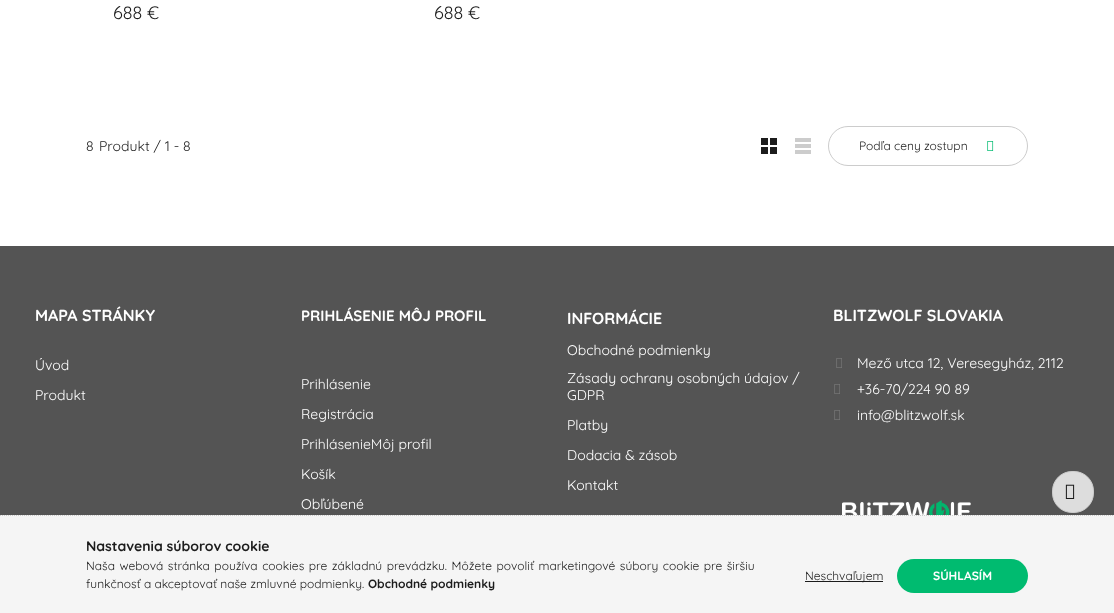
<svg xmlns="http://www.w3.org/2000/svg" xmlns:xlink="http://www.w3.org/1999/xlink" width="1114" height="613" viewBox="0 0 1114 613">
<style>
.cls-1{font:18px Quicksand;fill:#1c1c1c}
.cls-2{font:14px Quicksand;fill:#1c1c1c}
.cls-3{font:12px Quicksand;fill:#1c1c1c}
.cls-4{font:bold 16px Quicksand;fill:#ffffff}
.cls-5{font:14px Quicksand;fill:#ffffff}
.cls-6{font:bold 15px Quicksand;fill:#ffffff}
.cls-7{font:bold 14px Quicksand;fill:#1c1c1c}
.cls-8{font:bold 12px Quicksand;fill:#1c1c1c}
.cls-9{font:bold 12px Quicksand;fill:#ffffff}
</style>
<rect width="100%" height="100%" fill="#ffffff"/>
<image xlink:href="image0.png" x="761" y="138" width="16" height="16"/>
<rect fill="#cccccc" x="795" y="138" width="16" height="4"/>
<rect fill="#cccccc" x="795" y="144" width="16" height="4"/>
<rect fill="#cccccc" x="795" y="150" width="16" height="4"/>
<rect fill="none" stroke="#cccccc" x="828.5" y="126.5" width="199" height="39" rx="19.5"/>
<image xlink:href="image1.png" x="987" y="141" width="7" height="10"/>
<rect fill="#545454" x="0" y="246" width="1114" height="269"/>
<image xlink:href="image2.png" x="836" y="358" width="6" height="10"/>
<image xlink:href="image2.png" x="834" y="384" width="6" height="10"/>
<image xlink:href="image2.png" x="834" y="410" width="6" height="10"/>
<image xlink:href="image3.png" x="842" y="500" width="129" height="15"/>
<rect fill="#dddddd" stroke="#cccccc" x="1052.5" y="471.5" width="41" height="41" rx="19.5"/>
<image xlink:href="image4.png" x="1065" y="484" width="10" height="15"/>
<rect fill="#f5f5f5" x="0" y="515" width="1114" height="98"/>
<path fill="none" stroke="#cccccc" stroke-dasharray="1 1" d="M0 515.5H1114"/>
<rect fill="#1c1c1c" x="805" y="581" width="78" height="1"/>
<rect fill="#00bb70" x="897" y="559" width="131" height="34" rx="17"/>
<text class="cls-1" x="113" y="19">688 €</text>
<text class="cls-1" x="434" y="19">688 €</text>
<text class="cls-2" x="86" y="151">8</text>
<text class="cls-2" x="99" y="151">Produkt / 1 - 8</text>
<text class="cls-3" x="859" y="150">Podľa ceny zostupn</text>
<text class="cls-4" x="35" y="321">MAPA STRÁNKY</text>
<text class="cls-5" x="35" y="370">Úvod</text>
<text class="cls-5" x="35" y="400">Produkt</text>
<text class="cls-6" x="301" y="321">PRIHLÁSENIE MÔJ PROFIL</text>
<text class="cls-5" x="301" y="389">Prihlásenie</text>
<text class="cls-5" x="301" y="419">Registrácia</text>
<text class="cls-5" x="301" y="449">PrihlásenieMôj profil</text>
<text class="cls-5" x="301" y="479">Košík</text>
<text class="cls-5" x="301" y="509">Obľúbené</text>
<text class="cls-4" x="567" y="324">INFORMÁCIE</text>
<text class="cls-5" x="567" y="355">Obchodné podmienky</text>
<text class="cls-5"><tspan x="567" y="383">Zásady ochrany osobných údajov /</tspan><tspan x="567" y="400">GDPR</tspan></text>
<text class="cls-5" x="567" y="430">Platby</text>
<text class="cls-5" x="567" y="460">Dodacia &amp; zásob</text>
<text class="cls-5" x="567" y="490">Kontakt</text>
<text class="cls-4" x="833" y="321">BLITZWOLF SLOVAKIA</text>
<text class="cls-5"><tspan x="857" y="368">Mező utca 12, Veresegyház, 2112</tspan><tspan x="857" y="394">+36-70/224 90 89</tspan><tspan x="857" y="420">info@blitzwolf.sk</tspan></text>
<text class="cls-7" x="86" y="551">Nastavenia súborov cookie</text>
<text class="cls-3"><tspan x="86" y="570" word-spacing="1.25">Naša webová stránka používa cookies pre základnú prevádzku. Môžete povoliť marketingové súbory cookie pre širšiu</tspan><tspan x="86" y="588">funkčnosť a akceptovať naše zmluvné podmienky.</tspan></text>
<text class="cls-8" x="368" y="588">Obchodné podmienky</text>
<text class="cls-3" x="805" y="580">Neschvaľujem</text>
<text class="cls-9" x="933" y="580">SÚHLASÍM</text>
</svg>
